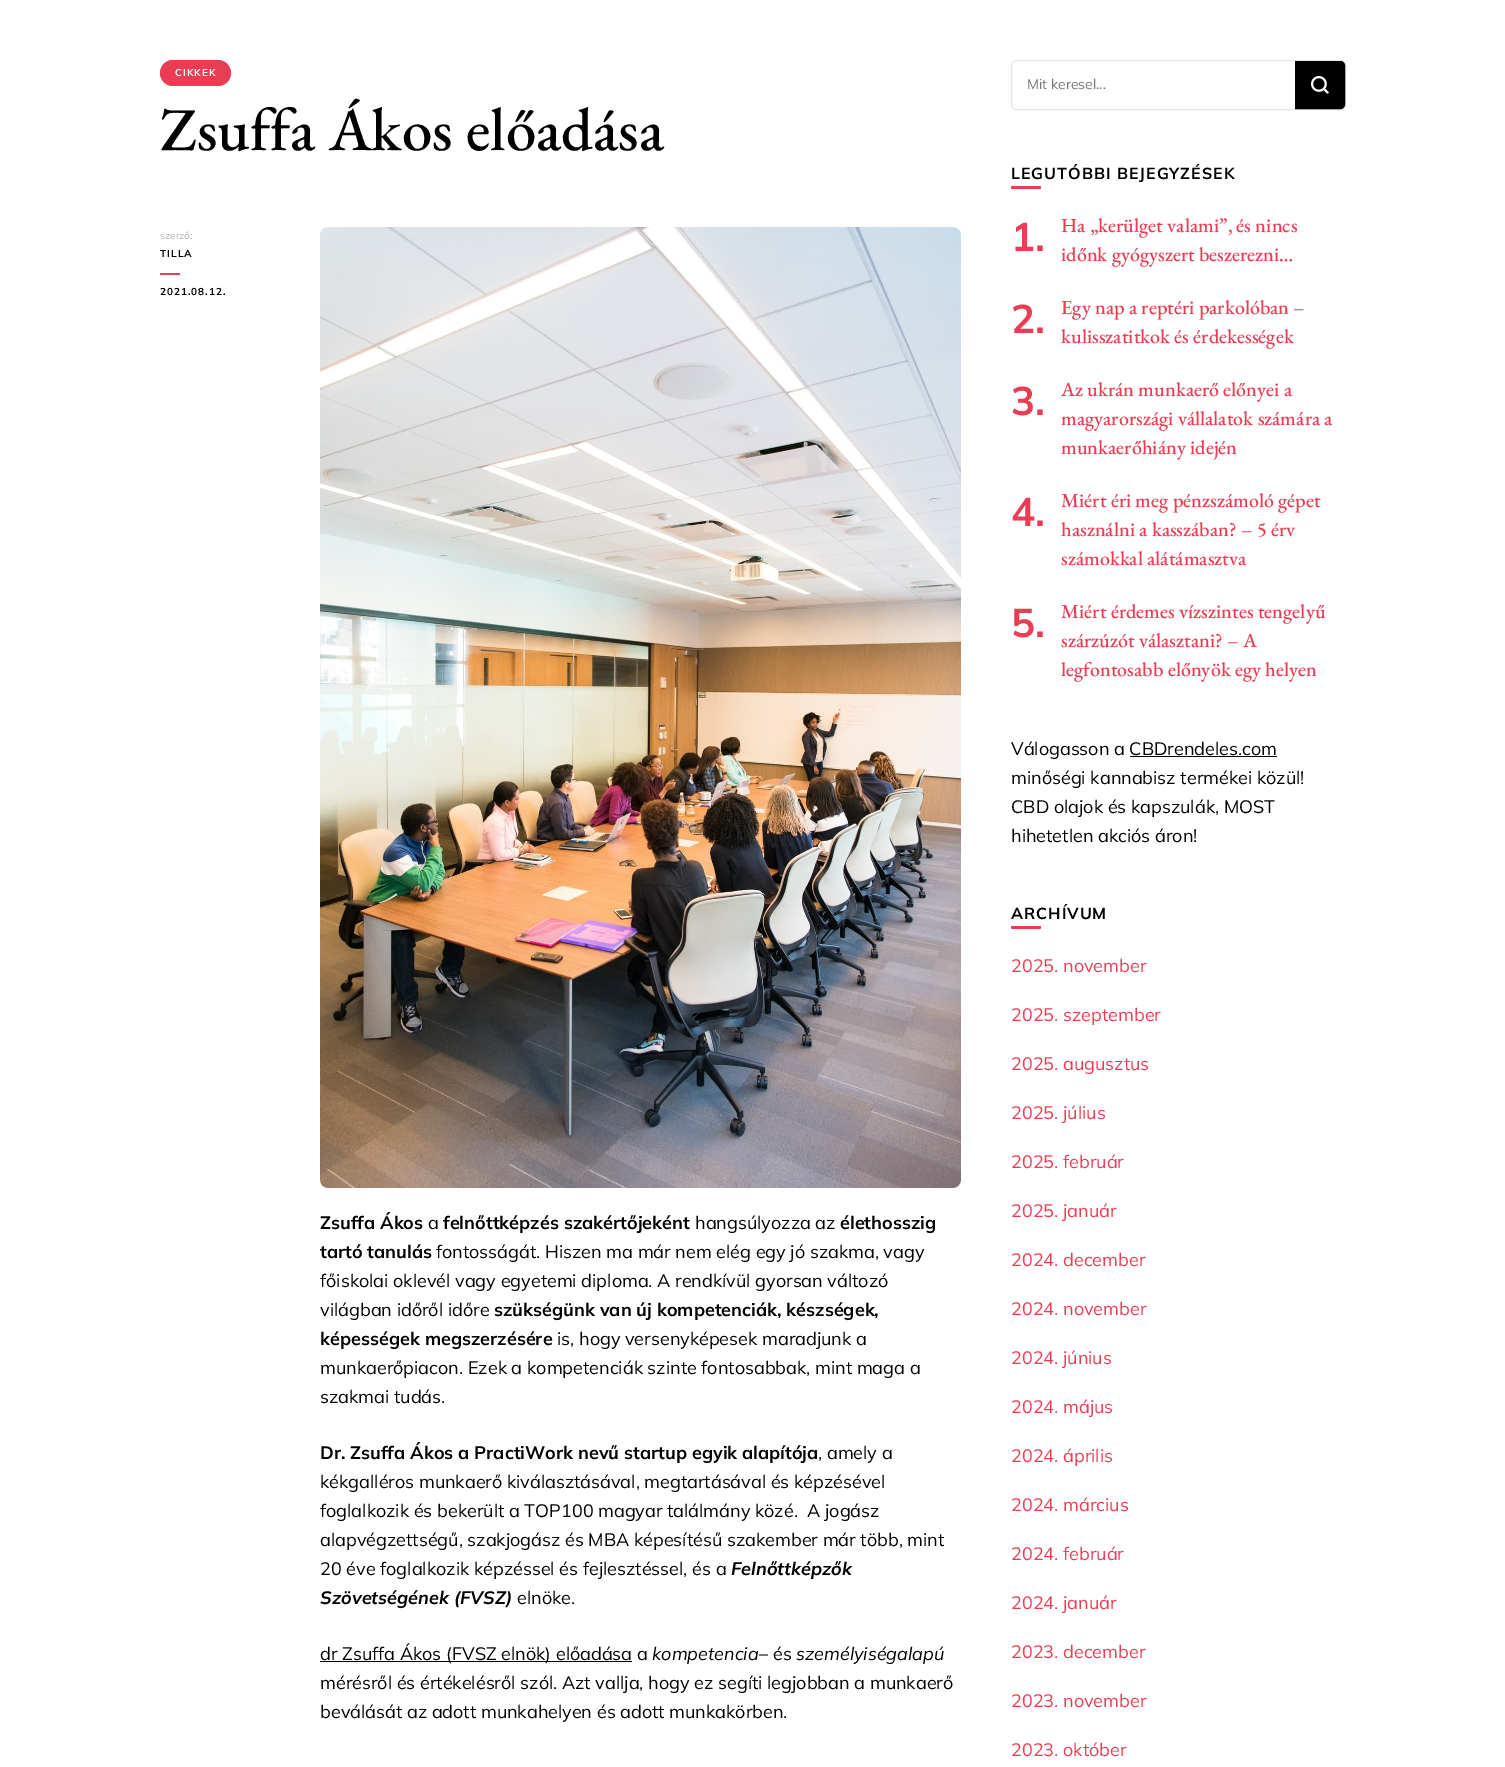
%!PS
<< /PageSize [1505 1767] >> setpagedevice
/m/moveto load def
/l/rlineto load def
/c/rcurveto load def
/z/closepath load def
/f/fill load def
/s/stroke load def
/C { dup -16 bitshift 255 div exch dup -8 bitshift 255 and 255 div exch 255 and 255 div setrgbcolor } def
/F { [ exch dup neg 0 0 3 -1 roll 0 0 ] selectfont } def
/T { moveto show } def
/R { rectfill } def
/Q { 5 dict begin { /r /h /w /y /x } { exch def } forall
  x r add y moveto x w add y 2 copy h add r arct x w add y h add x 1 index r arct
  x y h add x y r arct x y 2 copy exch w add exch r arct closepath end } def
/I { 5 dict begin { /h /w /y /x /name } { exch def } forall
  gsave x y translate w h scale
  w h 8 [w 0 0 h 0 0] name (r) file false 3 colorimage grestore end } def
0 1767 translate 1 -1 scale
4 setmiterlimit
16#FFFFFF C
0 0 1505 1767 R
16#EA3C53 C
160 60 71 26 13 Q f
/Mulish-Bold 10 F
16#FFFFFF C
175 76 m 1 0 (CIKKEK) ashow
/EBGaramond-Medium 61 F
16#000000 C
(Zsuffa Ákos előadása) 160 150 T
/Mulish-Regular 10 F
16#B1B1B2 C
(szerző:) 160 239 T
/Mulish-Bold 10 F
16#000000 C
160 257 m 1 0 (TILLA) ashow
16#EA3C53 C
160 273 20 2 1 Q f
16#000000 C
160 295 m 1 0 (2021.08.12.) ashow
(1.rgb) 320 227 641 961 I
/Mulish-Bold 18 F
(Zsuffa Ákos) 320 1229 T
/Mulish-Regular 18 F
(a) 428 1229 T
/Mulish-Bold 18 F
(felnőttképzés szakértőjeként) 443 1229 T
/Mulish-Regular 18 F
(hangsúlyozza az) 695 1229 T
/Mulish-Bold 18 F
(élethosszig) 840 1229 T
(tartó tanulás) 320 1258 T
/Mulish-Regular 18 F
(fontosságát. Hiszen ma már nem elég egy jó szakma, vagy) 436 1258 T
(főiskolai oklevél vagy egyetemi diploma. A rendkívül gyorsan változó) 320 1287 T
(világban időről időre) 320 1316 T
/Mulish-Bold 18 F
(szükségünk van új kompetenciák, készségek,) 494 1316 T
(képességek megszerzésére) 320 1345 T
/Mulish-Regular 18 F
(is, hogy versenyképesek maradjunk a) 557 1345 T
(munkaerőpiacon. Ezek a kompetenciák szinte fontosabbak, mint maga a) 320 1374 T
(szakmai tudás.) 320 1403 T
/Mulish-Bold 18 F
(Dr. Zsuffa Ákos a PractiWork nevű startup egyik alapítója) 320 1459 T
/Mulish-Regular 18 F
(, amely a) 818 1459 T
(kékgalléros munkaerő kiválasztásával, megtartásával és képzésével) 320 1488 T
(foglalkozik és bekerült a TOP100 magyar találmány közé.  A jogász) 320 1517 T
(alapvégzettségű, szakjogász és MBA képesítésű szakember már több, mint) 320 1546 T
(20 éve foglalkozik képzéssel és fejlesztéssel, és a) 320 1575 T
/Mulish-BoldItalic 18 F
(Felnőttképzők) 731 1575 T
(Szövetségének \(FVSZ\)) 320 1604 T
/Mulish-Regular 18 F
(elnöke.) 517 1604 T
320 1661 312 1 R
(dr Zsuffa Ákos \(FVSZ elnök\) előadása a) 320 1660 T
/Mulish-Italic 18 F
(kompetencia) 652 1660 T
/Mulish-Regular 18 F
(– és) 759 1660 T
/Mulish-Italic 18 F
(személyiségalapú) 796 1660 T
/Mulish-Regular 18 F
(mérésről és értékelésről szól. Azt vallja, hogy ez segíti legjobban a munkaerő) 320 1689 T
(beválását az adott munkahelyen és adott munkakörben.) 320 1718 T
16#E6E6E6 C
1011.5 60.5 334 49 4.5 Q s
/Mulish-Regular 14 F
16#757575 C
(Mit keresel...) 1027 89 T
16#000000 C
1295 61 m 45 0 l 3 0 5 2 5 5 c 0 38 l 0 3 -2 5 -5 5 c -45 0 l z f
(2.rgb) 1311 76 18 18 I
1295.5 61.5 m 44.5 0 l 2.5 0 4.5 2 4.5 4.5 c 0 38 l 0 2.5 -2 4.5 -4.5 4.5 c -44.5 0 l z s
/Mulish-Bold 16 F
1011 179 m 1 0 (LEGUTÓBBI BEJEGYZÉSEK) ashow
16#EA3C53 C
1011 186 30 3 1.5 Q f
/Mulish-Bold 40 F
(1.) 1011 251 T
/EBGaramond-Medium 20 F
(Ha „kerülget valami”, és nincs) 1061 232 T
(időnk gyógyszert beszerezni…) 1061 261 T
/Mulish-Bold 40 F
(2.) 1011 333 T
/EBGaramond-Medium 20 F
(Egy nap a reptéri parkolóban –) 1061 314 T
(kulisszatitkok és érdekességek) 1061 343 T
/Mulish-Bold 40 F
(3.) 1011 415 T
/EBGaramond-Medium 20 F
(Az ukrán munkaerő előnyei a) 1061 396 T
(magyarországi vállalatok számára a) 1061 425 T
(munkaerőhiány idején) 1061 454 T
/Mulish-Bold 40 F
(4.) 1011 526 T
/EBGaramond-Medium 20 F
(Miért éri meg pénzszámoló gépet) 1061 507 T
(használni a kasszában? – 5 érv) 1061 536 T
(számokkal alátámasztva) 1061 565 T
/Mulish-Bold 40 F
(5.) 1011 637 T
/EBGaramond-Medium 20 F
(Miért érdemes vízszintes tengelyű) 1061 618 T
(szárzúzót választani? – A) 1061 647 T
(legfontosabb előnyök egy helyen) 1061 676 T
/Mulish-Regular 18 F
16#000000 C
(Válogasson a CBDrendeles.com) 1011 755 T
1130 756 147 1 R
(minőségi kannabisz termékei közül!) 1011 784 T
(CBD olajok és kapszulák, MOST) 1011 813 T
(hihetetlen akciós áron!) 1011 842 T
/Mulish-Bold 16 F
1011 919 m 1 0 (ARCHÍVUM) ashow
16#EA3C53 C
1011 926 30 3 1.5 Q f
/Mulish-Regular 18 F
(2025. november) 1011 972 T
(2025. szeptember) 1011 1021 T
(2025. augusztus) 1011 1070 T
(2025. július) 1011 1119 T
(2025. február) 1011 1168 T
(2025. január) 1011 1217 T
(2024. december) 1011 1266 T
(2024. november) 1011 1315 T
(2024. június) 1011 1364 T
(2024. május) 1011 1413 T
(2024. április) 1011 1462 T
(2024. március) 1011 1511 T
(2024. február) 1011 1560 T
(2024. január) 1011 1609 T
(2023. december) 1011 1658 T
(2023. november) 1011 1707 T
(2023. október) 1011 1756 T
showpage
